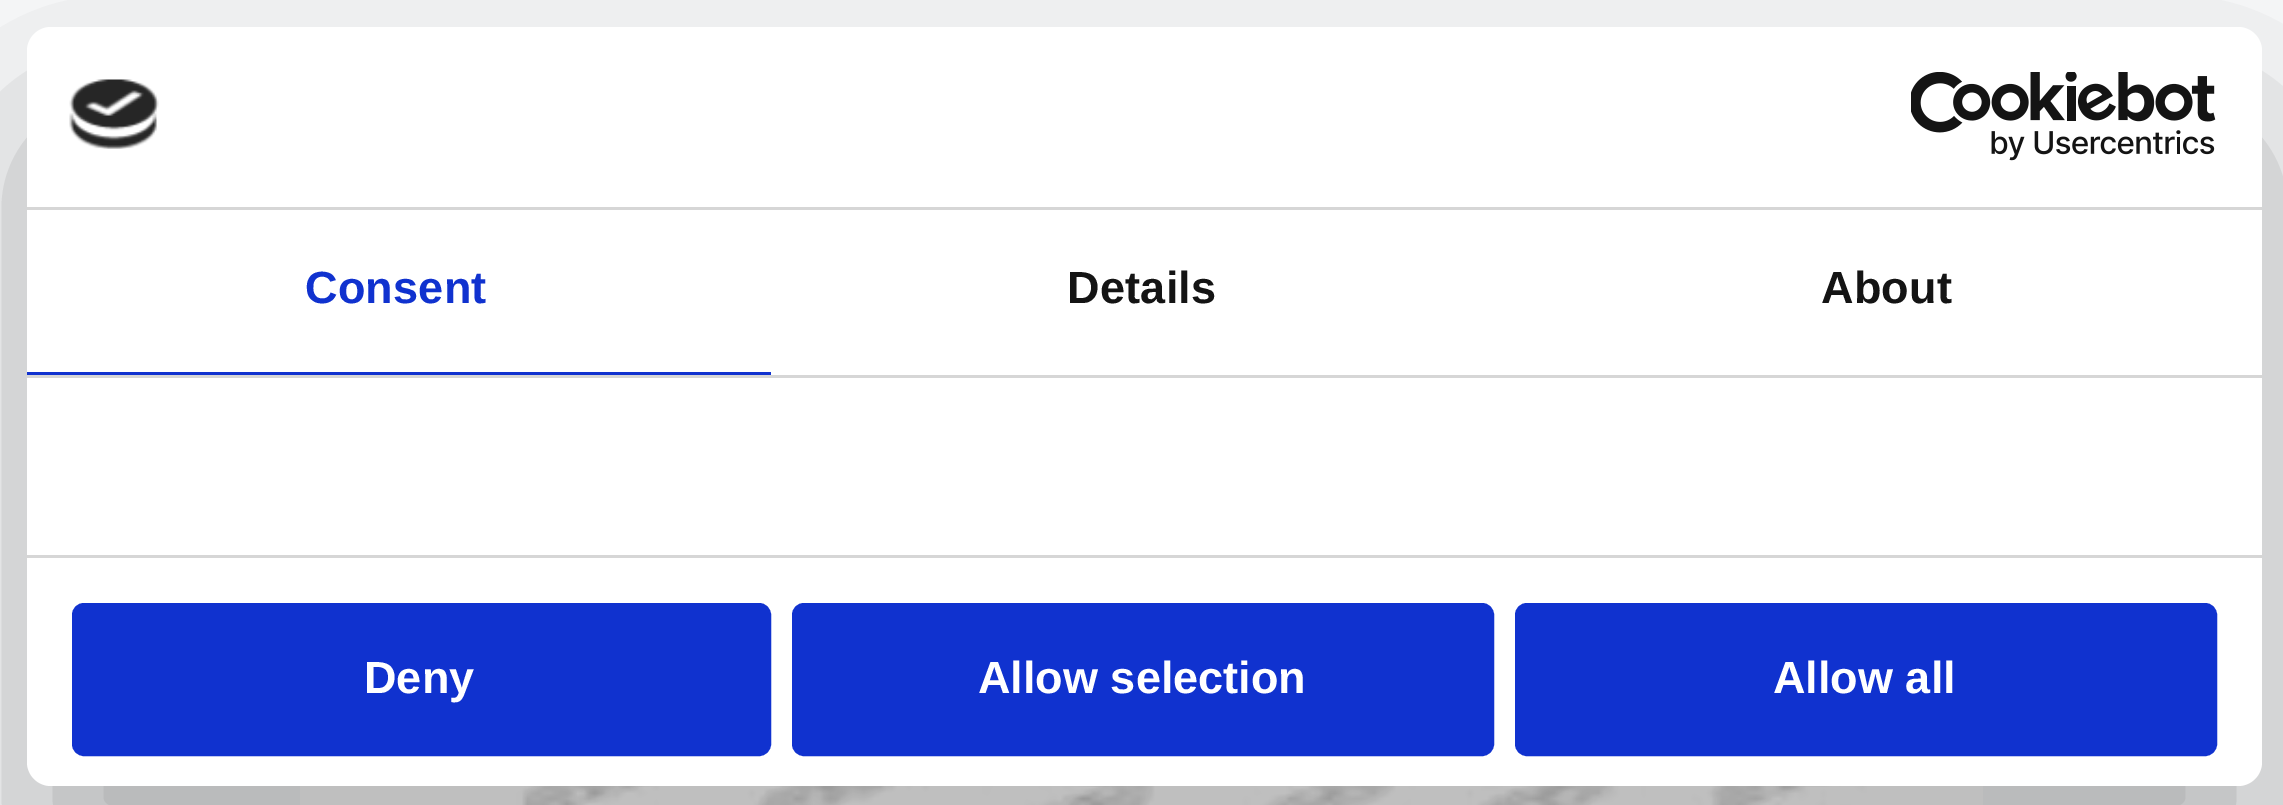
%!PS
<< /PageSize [2283 805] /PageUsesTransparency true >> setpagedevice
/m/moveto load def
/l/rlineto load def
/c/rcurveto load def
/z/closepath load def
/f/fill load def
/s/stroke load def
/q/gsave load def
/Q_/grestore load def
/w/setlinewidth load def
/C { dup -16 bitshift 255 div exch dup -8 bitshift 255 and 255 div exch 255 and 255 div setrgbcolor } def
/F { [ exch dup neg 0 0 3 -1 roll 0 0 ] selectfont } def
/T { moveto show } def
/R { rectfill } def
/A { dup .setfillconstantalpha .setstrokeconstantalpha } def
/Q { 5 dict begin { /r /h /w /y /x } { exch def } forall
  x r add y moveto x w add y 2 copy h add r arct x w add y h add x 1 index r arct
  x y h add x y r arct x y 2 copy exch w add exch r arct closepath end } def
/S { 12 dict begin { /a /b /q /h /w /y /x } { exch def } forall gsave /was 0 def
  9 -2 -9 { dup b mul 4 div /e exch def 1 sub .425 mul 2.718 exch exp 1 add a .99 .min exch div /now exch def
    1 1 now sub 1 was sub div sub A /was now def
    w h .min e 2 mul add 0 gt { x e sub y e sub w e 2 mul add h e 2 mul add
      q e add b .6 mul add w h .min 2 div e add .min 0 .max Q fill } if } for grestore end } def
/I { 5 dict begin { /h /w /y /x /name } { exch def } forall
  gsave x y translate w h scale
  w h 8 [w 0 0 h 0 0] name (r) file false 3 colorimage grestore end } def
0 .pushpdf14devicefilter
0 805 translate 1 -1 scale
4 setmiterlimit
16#F9FAFB C
0 0 2283 805 R
(3.rgb) 300 786 1683 19 I
q
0 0 m 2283 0 l 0 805 l -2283 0 l z 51 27 m 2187 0 l 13.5 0 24 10.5 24 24 c 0 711 l 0 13.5 -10.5 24 -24 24 c -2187 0 l -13.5 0 -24 -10.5 -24 -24 c 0 -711 l 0 -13.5 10.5 -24 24 -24 c z eoclip newpath
16#000000 C
27 123 2235 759 24 102 .3 S
Q_
16#FFFFFF C
27 27 2235 759 24 Q f
16#D6D6D6 C
27 207 2235 3 R
(1.rgb) 69 79 90 70 I
(2.rgb) 1911 72 305 89 I
27 375 2235 3 R
16#1032CF C
27 372 744 3 R
/LiberationSans-Bold 45 F
305 303 m .25 0 (Consent) ashow
16#141414 C
1067 303 m .25 0 (Details) ashow
1821 303 m .25 0 (About) ashow
16#D6D6D6 C
27 555 2235 3 R
16#1032CF C
75 606 693 147 9 Q q f Q_
6 w
s
16#FFFFFF C
(Deny) 364 693 T
16#1032CF C
795 606 696 147 9 Q q f Q_
s
16#FFFFFF C
(Allow selection) 978 693 T
16#1032CF C
1518 606 696 147 9 Q q f Q_
s
16#FFFFFF C
(Allow all) 1773 693 T
.poppdf14devicefilter showpage
